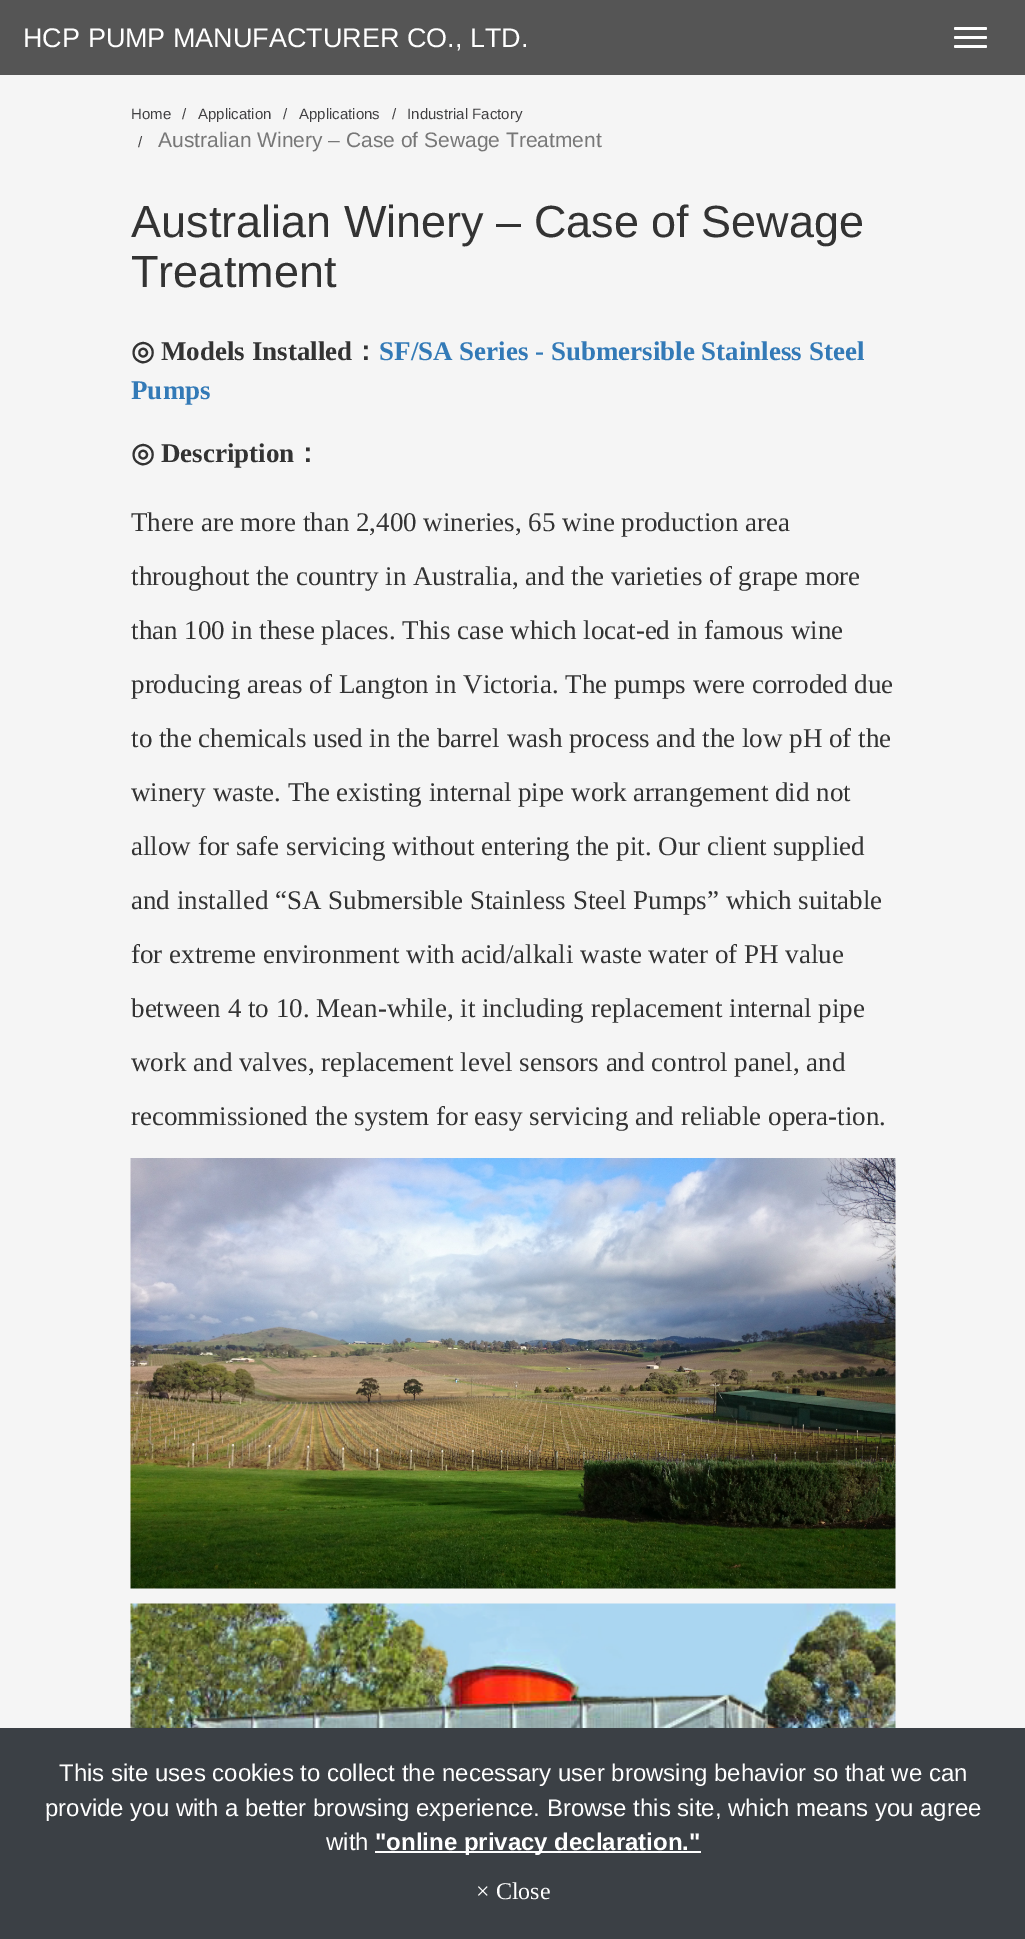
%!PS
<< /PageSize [1025 1939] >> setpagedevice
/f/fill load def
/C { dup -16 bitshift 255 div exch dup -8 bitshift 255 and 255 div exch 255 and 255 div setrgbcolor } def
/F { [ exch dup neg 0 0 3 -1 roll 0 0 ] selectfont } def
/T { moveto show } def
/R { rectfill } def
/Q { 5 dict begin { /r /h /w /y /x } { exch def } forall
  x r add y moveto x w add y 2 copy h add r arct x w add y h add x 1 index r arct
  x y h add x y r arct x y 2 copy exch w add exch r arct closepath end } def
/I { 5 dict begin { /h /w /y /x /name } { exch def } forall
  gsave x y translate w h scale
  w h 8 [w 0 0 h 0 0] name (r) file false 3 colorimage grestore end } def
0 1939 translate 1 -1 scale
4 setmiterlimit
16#F5F5F5 C
0 0 1025 1939 R
16#555555 C
0 0 1025 75 R
/LiberationSans-Regular 27 F
16#FFFFFF C
(HCP PUMP MANUFACTURER CO., LTD.) 23 47 T
954 27 33 3 1.5 Q f
954 36 33 3 1.5 Q f
954 45 33 3 1.5 Q f
/LiberationSans-Regular 15 F
16#414042 C
(Home) 131 119 T
(/) 182 119 T
(Application) 198 119 T
(/) 283 119 T
(Applications) 299 119 T
(/) 392 119 T
(Industrial Factory) 407 119 T
(/) 138 147 T
/LiberationSans-Regular 21 F
16#777777 C
(Australian Winery – Case of Sewage Treatment) 158 147 T
/LiberationSans-Regular 45 F
16#333333 C
(Australian Winery – Case of Sewage) 131 237 T
(Treatment) 131 287 T
/DejaVuSans-Bold 27 F
(◎) 131 360 T
/LiberationSerif-Bold 27 F
(Models Installed) 161 360 T
/WenQuanYiZenHei-Bold 27 F
(：) 352 360 T
/LiberationSerif-Bold 27 F
16#337AB7 C
(SF/SA Series - Submersible Stainless Steel) 379 360 T
(Pumps) 131 399 T
/DejaVuSans-Bold 27 F
16#333333 C
(◎) 131 462 T
/LiberationSerif-Bold 27 F
(Description) 161 462 T
/WenQuanYiZenHei-Bold 27 F
(：) 294 462 T
/LiberationSerif-Regular 27 F
(There are more than 2,400 wineries, 65 wine production area) 131 531 T
(throughout the country in Australia, and the varieties of grape more) 131 585 T
(than 100 in these places. This case which locat-ed in famous wine) 131 639 T
(producing areas of Langton in Victoria. The pumps were corroded due) 131 693 T
(to the chemicals used in the barrel wash process and the low pH of the) 131 747 T
(winery waste. The existing internal pipe work arrangement did not) 131 801 T
(allow for safe servicing without entering the pit. Our client supplied) 131 855 T
(and installed “SA Submersible Stainless Steel Pumps” which suitable) 131 909 T
(for extreme environment with acid/alkali waste water of PH value) 131 963 T
(between 4 to 10. Mean-while, it including replacement internal pipe) 131 1017 T
(work and valves, replacement level sensors and control panel, and) 131 1071 T
(recommissioned the system for easy servicing and reliable opera-tion.) 131 1125 T
(1.rgb) 130 1158 766 431 I
(2.rgb) 130 1603 766 125 I
16#3B4045 C
0 1728 1025 211 R
/LiberationSans-Regular 24 F
16#FFFFFF C
(This site uses cookies to collect the necessary user browsing behavior so that we can) 59 1781 T
(provide you with a better browsing experience. Browse this site, which means you agree) 45 1816 T
(with) 326 1850 T
375 1851 326 2 R
/LiberationSans-Bold 24 F
("online privacy declaration.") 375 1850 T
/LiberationSerif-Regular 24 F
(× Close) 476 1899 T
showpage
